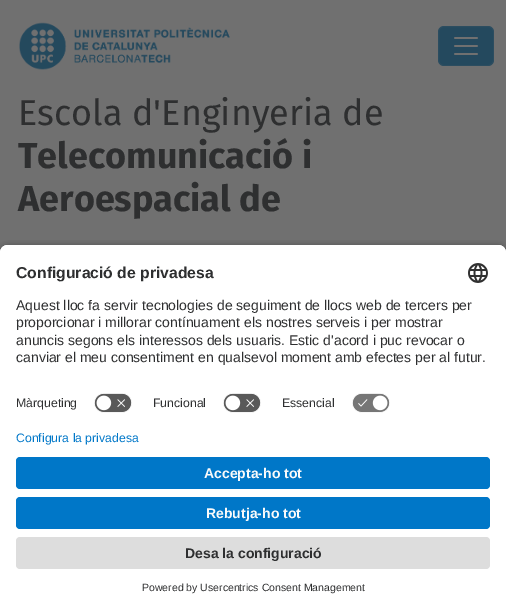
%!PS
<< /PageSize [506 609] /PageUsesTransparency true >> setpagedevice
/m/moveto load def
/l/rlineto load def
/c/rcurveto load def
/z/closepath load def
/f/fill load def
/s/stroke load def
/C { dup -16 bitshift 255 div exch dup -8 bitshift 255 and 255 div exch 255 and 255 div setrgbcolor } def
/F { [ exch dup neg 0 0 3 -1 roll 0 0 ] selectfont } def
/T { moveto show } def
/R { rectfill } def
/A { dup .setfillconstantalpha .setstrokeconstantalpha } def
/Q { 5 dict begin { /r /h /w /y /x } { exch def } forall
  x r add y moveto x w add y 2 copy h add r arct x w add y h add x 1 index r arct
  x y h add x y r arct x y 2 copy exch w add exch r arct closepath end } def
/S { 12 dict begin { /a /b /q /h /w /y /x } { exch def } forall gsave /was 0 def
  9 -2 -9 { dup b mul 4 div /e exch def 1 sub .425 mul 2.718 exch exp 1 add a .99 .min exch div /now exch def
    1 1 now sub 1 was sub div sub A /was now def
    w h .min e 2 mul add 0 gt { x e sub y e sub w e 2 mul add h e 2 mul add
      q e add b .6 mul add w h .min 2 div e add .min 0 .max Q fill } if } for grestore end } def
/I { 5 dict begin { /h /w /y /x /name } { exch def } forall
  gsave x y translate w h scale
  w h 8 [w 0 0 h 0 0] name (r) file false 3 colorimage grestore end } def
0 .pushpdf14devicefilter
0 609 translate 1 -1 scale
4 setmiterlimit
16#707070 C
0 0 506 609 R
(1.rgb) 19 22 211 48 I
16#24495E C
438 26 56 40 6 Q f
0.1 A
16#707070 C
438.5 26.5 55 39 5.5 Q s
1 A
(2.rgb) 454 37 24 18 I
/FiraSans-Regular 36 F
16#2E2F30 C
(Escola d'Enginyeria de) 18 125 T
/FiraSans-Bold 36 F
(Telecomunicació i) 18 168 T
(Aeroespacial de) 18 211 T
16#000000 C
0 248 506 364 8 3.5 .8 S
16#FFFFFF C
8 245 m 490 0 l 4.5 0 8 3.5 8 8 c 0 178 l -506 0 l 0 -178 l 0 -4.5 3.5 -8 8 -8 c z f
8 245 m 490 0 l 4.5 0 8 3.5 8 8 c 0 134 l -506 0 l 0 -134 l 0 -4.5 3.5 -8 8 -8 c z f
/LiberationSans-Bold 15.75 F
16#2E2F30 C
(Configuració de privadesa) 16 278 T
(3.rgb) 468 263 20 20 I
/LiberationSans-Regular 14 F
(Aquest lloc fa servir tecnologies de seguiment de llocs web de tercers per) 16 310 T
(proporcionar i millorar contínuament els nostres serveis i per mostrar) 16 327 T
(anuncis segons els interessos dels usuaris. Estic d'acord i puc revocar o) 16 345 T
(canviar el meu consentiment en qualsevol moment amb efectes per al futur.) 16 362 T
/LiberationSans-Regular 12.25 F
(Màrqueting) 16 407 T
(4.rgb) 94 393 38 20 I
(Funcional) 153 407 T
(4.rgb) 223 393 38 20 I
(Essencial) 282 407 T
(5.rgb) 352 393 38 20 I
16#FFFFFF C
0 431 506 178 R
16#0077C8 C
(Configura la privadesa) 16 442 T
16 457 474 32 4 Q f
/LiberationSans-Bold 14 F
16#FAFAFA C
(Accepta-ho tot) 204 478 T
16#0077C8 C
16 497 474 32 4 Q f
16#FAFAFA C
(Rebutja-ho tot) 206 518 T
16#DDDDDD C
16 537 474 32 4 Q f
16#2E2F30 C
(Desa la configuració) 185 558 T
/LiberationSans-Regular 10.5 F
(Powered by Usercentrics Consent Management) 142 591 T
.poppdf14devicefilter showpage
